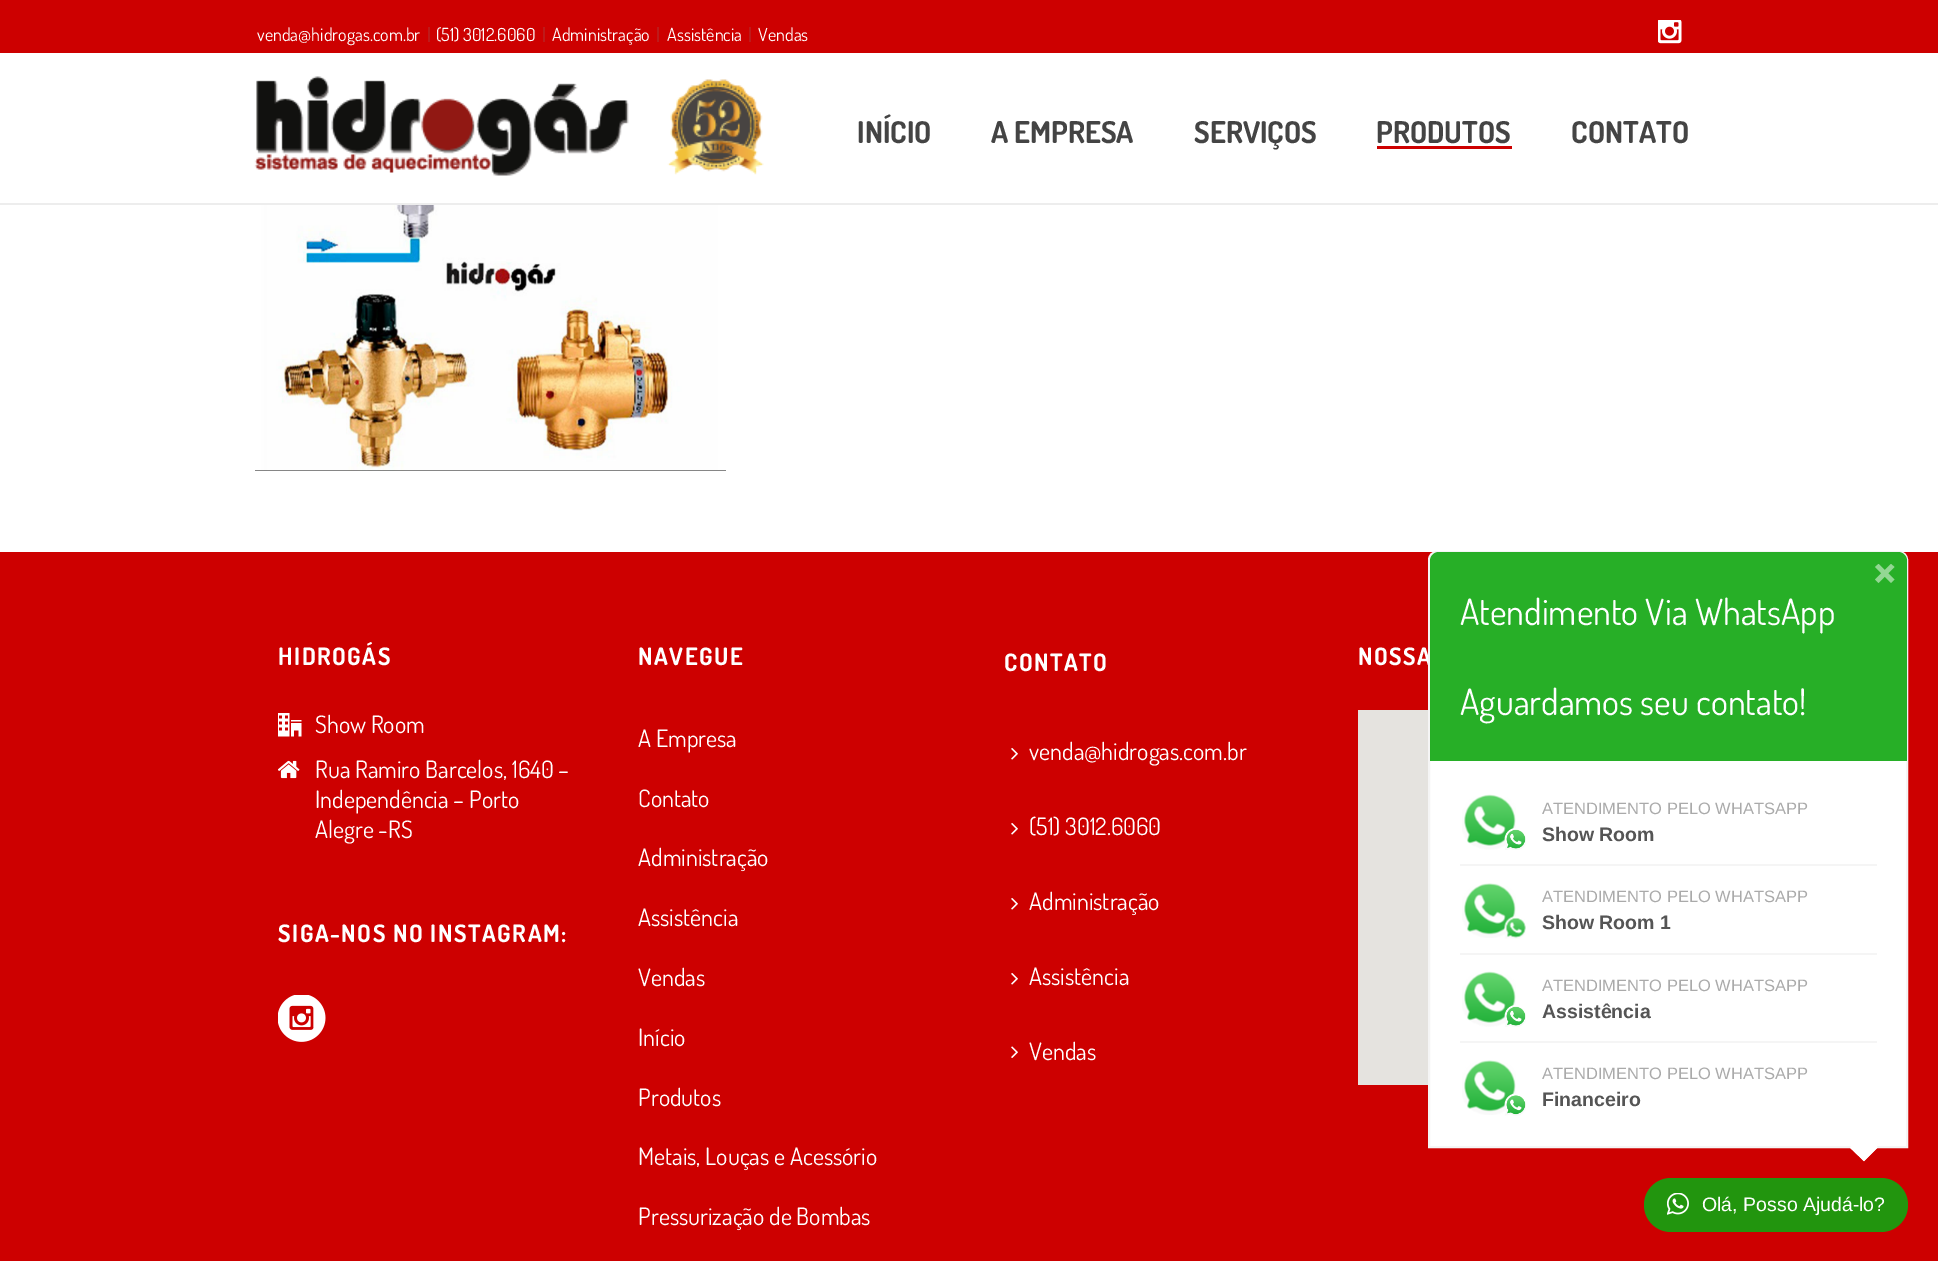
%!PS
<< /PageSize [1938 1261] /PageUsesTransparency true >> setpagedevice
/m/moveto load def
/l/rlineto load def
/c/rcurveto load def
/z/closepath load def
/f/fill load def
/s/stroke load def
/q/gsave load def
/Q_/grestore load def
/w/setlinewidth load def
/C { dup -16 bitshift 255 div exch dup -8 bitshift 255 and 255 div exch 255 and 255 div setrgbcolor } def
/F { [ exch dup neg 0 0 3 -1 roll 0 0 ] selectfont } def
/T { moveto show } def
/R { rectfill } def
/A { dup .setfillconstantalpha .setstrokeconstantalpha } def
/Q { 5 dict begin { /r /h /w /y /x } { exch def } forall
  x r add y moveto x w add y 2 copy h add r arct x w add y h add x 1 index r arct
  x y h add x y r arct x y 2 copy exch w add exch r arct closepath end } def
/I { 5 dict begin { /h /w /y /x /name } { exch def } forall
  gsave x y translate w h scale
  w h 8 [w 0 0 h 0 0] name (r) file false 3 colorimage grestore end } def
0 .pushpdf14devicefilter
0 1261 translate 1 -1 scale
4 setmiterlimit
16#FFFFFF C
0 0 1938 1261 R
16#CD0000 C
0 0 1938 53 R
16#BE1A1A C
428 27 2 15 R
/Dosis-Regular 18 F
16#FFFFFF C
(venda@hidrogas.com.br) 257 41 T
16#BE1A1A C
543 27 2 15 R
16#FFFFFF C
(\(51\) 3012.6060) 436 41 T
16#BE1A1A C
657 27 2 15 R
16#FFFFFF C
(Administração) 552 41 T
16#BE1A1A C
749 27 2 15 R
16#FFFFFF C
(Assistência) 667 41 T
(Vendas) 758 41 T
(1.rgb) 1658 20 24 24 I
16#EDEDED C
0 203 1938 2 R
(2.rgb) 254 76 510 100 I
/Dosis-Bold 30 F
16#444444 C
(INÍCIO) 857 143 T
(A EMPRESA) 991 143 T
(SERVIÇOS) 1194 143 T
(PRODUTOS) 1376 143 T
16#CD0000 C
1377 146 135 3 R
16#444444 C
(CONTATO) 1571 143 T
16#000000 C
255 470 471 1 R
(3.rgb) 255 205 471 266 I
16#CD0000 C
0 552 1938 709 R
/Dosis-Bold 24 F
16#FFFFFF C
278 665 m 1.5 0 (HIDROGÁS) ashow
(4.rgb) 278 713 24 24 I
/Dosis-Regular 24 F
(Show Room) 315 733 T
(5.rgb) 278 760 22 19 I
(Rua Ramiro Barcelos, 1640 –) 315 778 T
(Independência – Porto) 315 808 T
(Alegre -RS) 315 838 T
/Dosis-Bold 24 F
278 942 m 1.5 0 (SIGA-NOS NO INSTAGRAM:) ashow
(6.rgb) 278 995 48 47 I
638 665 m 1.5 0 (NAVEGUE) ashow
/Dosis-Regular 24 F
(A Empresa) 638 747 T
(Contato) 638 807 T
(Administração) 638 866 T
(Assistência) 638 926 T
(Vendas) 638 986 T
(Início) 638 1046 T
(Produtos) 638 1106 T
(Metais, Louças e Acessório) 638 1165 T
(Pressurização de Bombas) 638 1225 T
/Dosis-Bold 24 F
1004 671 m 1.5 0 (CONTATO) ashow
(7.rgb) 1011 748 7 12 I
/Dosis-Regular 24 F
(venda@hidrogas.com.br) 1029 760 T
(7.rgb) 1011 823 7 12 I
(\(51\) 3012.6060) 1029 835 T
(7.rgb) 1011 898 7 12 I
(Administração) 1029 910 T
(7.rgb) 1011 973 7 12 I
(Assistência) 1029 985 T
(8.rgb) 1011 1046 7 12 I
(Vendas) 1029 1060 T
/Dosis-Bold 24 F
1358 665 m 1.5 0 (NOSSA) ashow
16#E5E3DF C
1358 710 70 375 R
16#FFFFFF C
1437 552 m 462 0 l 4.5 0 8 3.5 8 8 c 0 587 l -478 0 l 0 -587 l 0 -4.5 3.5 -8 8 -8 c z q f Q_
16#F5F5F5 C
2 w
s
0.9 A
16#0FA60F C
1439 552 m 459 0 l 5 0 9 4 9 9 c 0 200 l -477 0 l 0 -200 l 0 -5 4 -9 9 -9 c z f
1 A
16#93D793 C
1878.5 564 m 16 15.5 l -3.5 3.5 l -16 -16 l z f
1875 579.5 m 16 -15.5 l 3.5 3 l -16 16 l z f
/Dosis-Regular 36 F
16#FFFFFF C
(Atendimento Via WhatsApp) 1460 625 T
(Aguardamos seu contato!) 1460 715 T
(9.rgb) 1462 794 54 56 I
(10.rgb) 1504 828 22 22 I
/LiberationSans-Regular 16.5 F
16#AAAAAA C
(ATENDIMENTO PELO WHATSAPP) 1542 814 T
/LiberationSans-Bold 19.5 F
16#555555 C
(Show Room) 1542 841 T
16#F5F5F5 C
1460 864 417 2 R
(11.rgb) 1462 883 54 55 I
(12.rgb) 1504 916 22 23 I
/LiberationSans-Regular 16.5 F
16#AAAAAA C
(ATENDIMENTO PELO WHATSAPP) 1542 902 T
/LiberationSans-Bold 19.5 F
16#555555 C
(Show Room 1) 1542 929 T
16#F5F5F5 C
1460 953 417 2 R
(9.rgb) 1462 971 54 56 I
(10.rgb) 1504 1005 22 22 I
/LiberationSans-Regular 16.5 F
16#AAAAAA C
(ATENDIMENTO PELO WHATSAPP) 1542 991 T
/LiberationSans-Bold 19.5 F
16#555555 C
(Assistência) 1542 1018 T
16#F5F5F5 C
1460 1041 417 2 R
(11.rgb) 1462 1060 54 55 I
(13.rgb) 1504 1093 22 23 I
/LiberationSans-Regular 16.5 F
16#AAAAAA C
(ATENDIMENTO PELO WHATSAPP) 1542 1079 T
/LiberationSans-Bold 19.5 F
16#555555 C
(Financeiro) 1542 1106 T
16#FFFFFF C
1864 1133.5 m 13.5 14 l -13.5 13.5 l -14 -13.5 l z f
1.5 w
1864 1134.5 m 12.5 13 l -12.5 12.5 l -13 -12.5 l z s
16#22950E C
1644 1178 264 54 27 Q f
(14.rgb) 1667 1193 22 22 I
/LiberationSans-Regular 19.5 F
16#FFFFFF C
(Olá, Posso Ajudá-lo?) 1702 1211 T
.poppdf14devicefilter showpage
